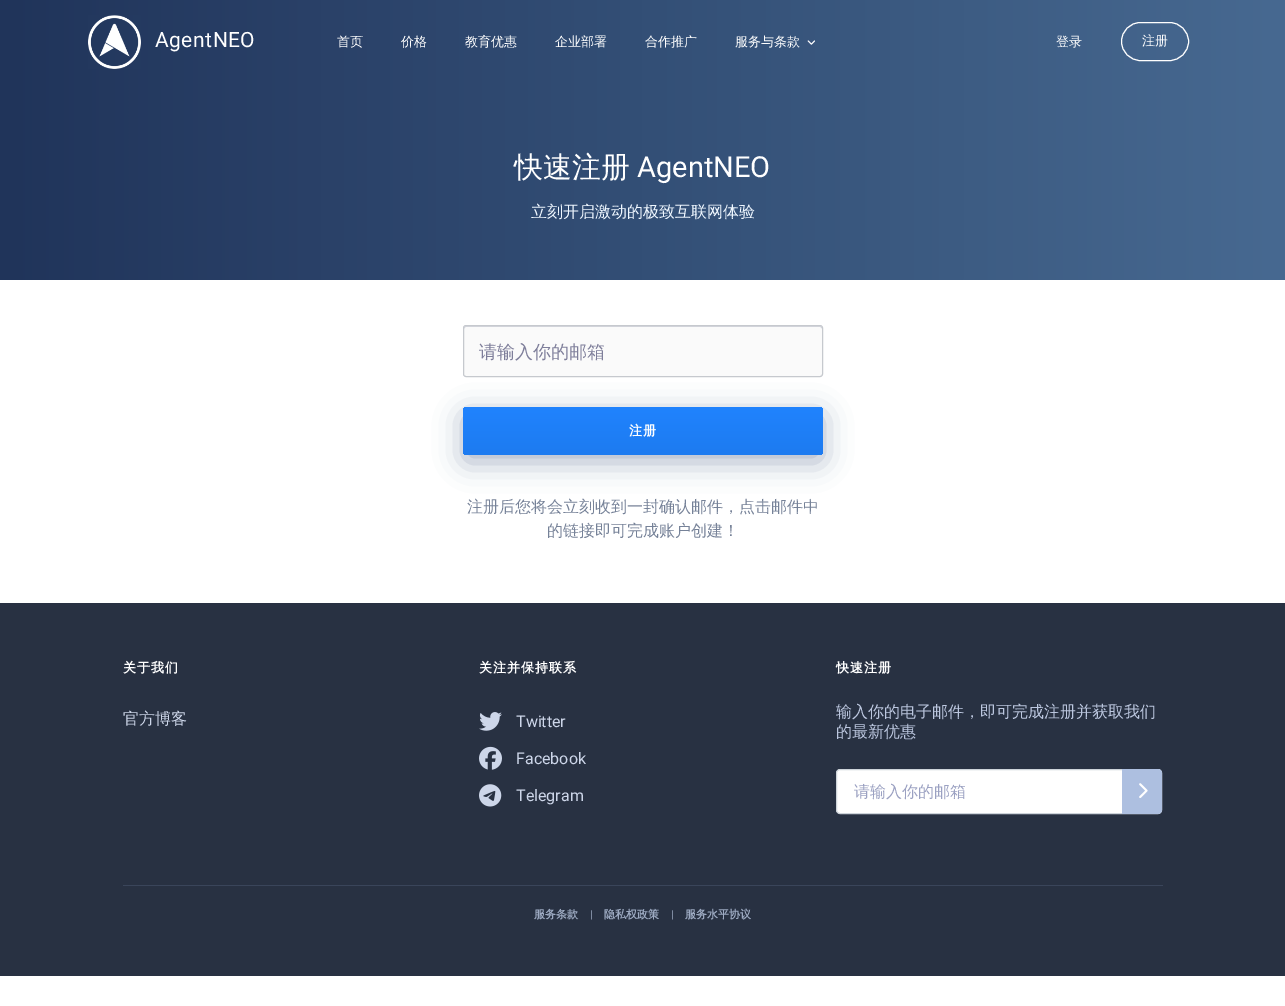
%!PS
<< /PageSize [1285 1006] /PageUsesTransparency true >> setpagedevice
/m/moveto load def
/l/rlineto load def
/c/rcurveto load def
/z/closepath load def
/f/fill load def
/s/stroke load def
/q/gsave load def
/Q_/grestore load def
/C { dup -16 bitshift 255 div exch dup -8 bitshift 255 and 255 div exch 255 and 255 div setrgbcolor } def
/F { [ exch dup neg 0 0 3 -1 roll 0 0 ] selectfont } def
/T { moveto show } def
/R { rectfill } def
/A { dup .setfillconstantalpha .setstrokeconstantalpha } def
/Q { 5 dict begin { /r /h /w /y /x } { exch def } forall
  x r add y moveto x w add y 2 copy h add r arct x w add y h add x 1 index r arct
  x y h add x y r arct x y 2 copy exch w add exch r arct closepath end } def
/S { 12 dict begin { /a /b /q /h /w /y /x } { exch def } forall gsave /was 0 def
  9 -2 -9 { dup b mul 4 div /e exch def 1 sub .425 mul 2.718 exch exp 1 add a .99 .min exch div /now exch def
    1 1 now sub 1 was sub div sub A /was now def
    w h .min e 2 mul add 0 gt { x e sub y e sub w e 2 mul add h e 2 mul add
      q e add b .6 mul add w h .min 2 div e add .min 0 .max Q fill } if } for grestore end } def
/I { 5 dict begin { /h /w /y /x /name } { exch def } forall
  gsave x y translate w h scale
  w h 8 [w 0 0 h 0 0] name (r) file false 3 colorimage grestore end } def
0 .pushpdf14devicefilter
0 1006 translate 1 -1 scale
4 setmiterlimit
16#FFFFFF C
0 0 1285 1006 R
q 0 0 m 1285 0 l 0 280 l -1285 0 l z clip newpath
<< /ShadingType 2 /ColorSpace /DeviceRGB /Coords [0 140 1285 140] /Extend [true true] /Function << /FunctionType 2 /Domain [0 1] /C0 [.125 .204 .353] /C1 [.278 .412 .569] /N 1 >> >> shfill Q_
(1.rgb) 88 15 53 54 I
/Roboto-Regular 21 F
155 47 m .5 0 (AgentNEO) ashow
/WenQuanYiZenHei-Medium 13 F
(首页) 337 46 T
(价格) 401 46 T
(教育优惠) 465 46 T
(企业部署) 555 46 T
(合作推广) 645 46 T
(服务与条款) 735 46 T
(2.rgb) 807 40 8 5 I
(登录) 1056 46 T
1121.5 22.5 67 38 19 Q s
(注册) 1142 45 T
/WenQuanYiZenHei-Medium 29 F
(快速注册) 514 177 T
/Roboto-Regular 29 F
(AgentNEO) 637 177 T
/WenQuanYiZenHei-Medium 16 F
16#EFF7FF C
(立刻开启激动的极致互联网体验) 531 217 T
16#FAFAFA C
463 325 360 52 3 Q f
16#D5D7DE C
466 327 m 354 0 l 1 0 2 1 2 2 c 0 -1 0 -3 -2 -3 c -354 0 l -2 0 -2 2 -2 3 c 0 -1 1 -2 2 -2 c z f
16#C6C9CE C
463.5 325.5 359 51 2.5 Q s
/WenQuanYiZenHei-Medium 18 F
16#7E7E9A C
(请输入你的邮箱) 479 358 T
16#172B63 C
463 414 360 48 4 14 .35 S
q 463 407 360 48 4 Q clip newpath
<< /ShadingType 2 /ColorSpace /DeviceRGB /Coords [643 407 643 455] /Extend [true true] /Function << /FunctionType 2 /Domain [0 1] /C0 [.125 .514 .996] /C1 [.114 .482 .941] /N 1 >> >> shfill Q_
/WenQuanYiZenHei-Bold 13 F
16#FFFFFF C
629 435 m 1 0 (注册) ashow
/WenQuanYiZenHei-Medium 16 F
16#768298 C
(注册后您将会立刻收到一封确认邮件，点击邮件中) 467 512 T
(的链接即可完成账户创建！) 547 536 T
16#283142 C
0 603 1285 373 R
/WenQuanYiZenHei-Bold 13 F
16#FFFFFF C
123 672 m 1 0 (关于我们) ashow
/WenQuanYiZenHei-Medium 16 F
16#CDD6E9 C
(官方博客) 123 724 T
/WenQuanYiZenHei-Bold 13 F
16#FFFFFF C
479 672 m 1 0 (关注并保持联系) ashow
(3.rgb) 479 712 23 19 I
/Roboto-Regular 16 F
16#CDD6E9 C
(Twitter) 516 727 T
(4.rgb) 479 746 23 24 I
(Facebook) 516 764 T
(5.rgb) 479 784 23 23 I
(Telegram) 516 801 T
/WenQuanYiZenHei-Bold 13 F
16#FFFFFF C
836 672 m 1 0 (快速注册) ashow
/WenQuanYiZenHei-Medium 16 F
16#BCC7DF C
(输入你的电子邮件，即可完成注册并获取我们) 836 717 T
(的最新优惠) 836 737 T
16#FFFFFF C
836.5 769.5 325 44 3.5 Q q f Q_
16#CED4DA C
s
16#9BA1C2 C
(请输入你的邮箱) 854 797 T
16#ADBFE0 C
1122 769 m 36 0 l 2 0 4 2 4 4 c 0 37 l 0 2 -2 4 -4 4 c -36 0 l z f
(6.rgb) 1139 783 9 15 I
16#3A455A C
123 885 1040 1 R
/WenQuanYiZenHei-Bold 11 F
16#9DAAC2 C
(服务条款) 534 918 T
/Roboto-Bold 11 F
(|) 590 918 T
/WenQuanYiZenHei-Bold 11 F
(隐私权政策) 604 918 T
/Roboto-Bold 11 F
(|) 671 918 T
/WenQuanYiZenHei-Bold 11 F
(服务水平协议) 685 918 T
.poppdf14devicefilter showpage
